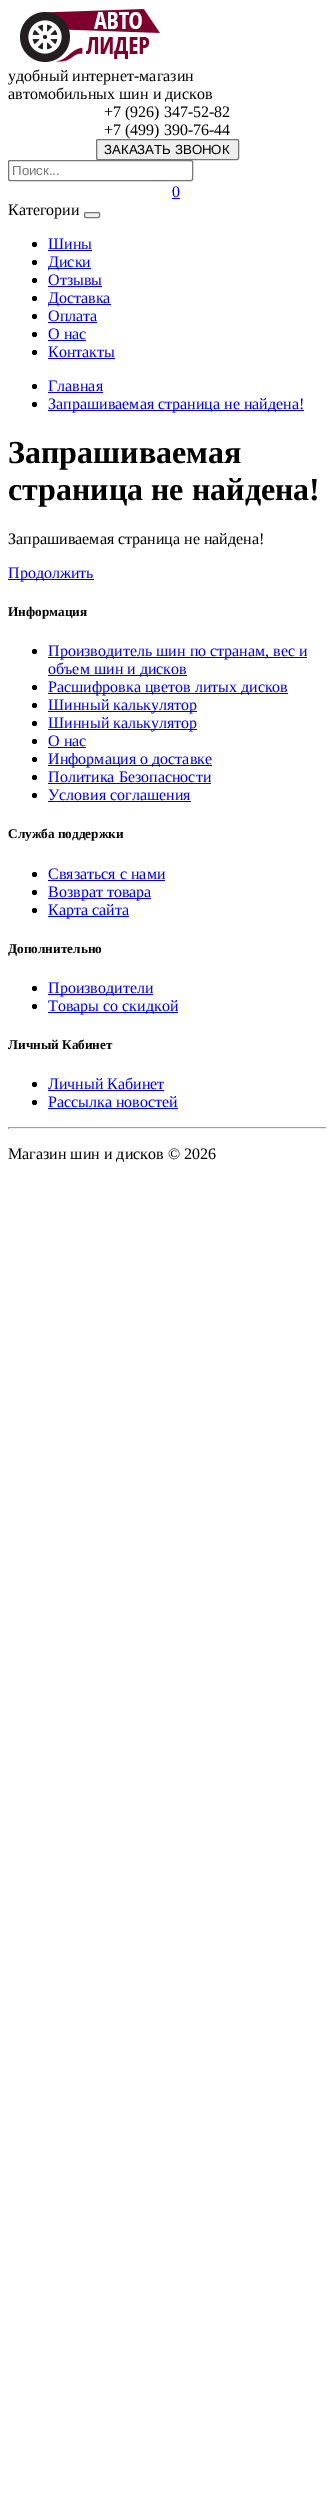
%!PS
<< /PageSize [335 2520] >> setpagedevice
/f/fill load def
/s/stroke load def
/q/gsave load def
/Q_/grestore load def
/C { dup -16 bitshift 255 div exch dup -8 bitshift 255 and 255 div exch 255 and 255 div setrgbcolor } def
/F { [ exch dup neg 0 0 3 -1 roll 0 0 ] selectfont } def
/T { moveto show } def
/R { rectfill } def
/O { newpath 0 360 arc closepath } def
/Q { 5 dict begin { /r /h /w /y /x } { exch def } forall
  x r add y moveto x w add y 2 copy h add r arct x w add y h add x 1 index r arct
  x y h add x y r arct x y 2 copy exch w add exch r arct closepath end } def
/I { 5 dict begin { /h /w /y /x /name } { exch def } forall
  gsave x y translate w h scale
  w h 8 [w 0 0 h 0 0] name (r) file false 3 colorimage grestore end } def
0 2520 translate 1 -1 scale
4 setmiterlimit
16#FFFFFF C
0 0 335 2520 R
(1.rgb) 20 9 140 53 I
/LiberationSerif-Regular 16 F
16#000000 C
(удобный интернет-магазин) 8 81 T
(автомобильных шин и дисков) 8 99 T
(+7 \(926\) 347-52-82) 104 117 T
(+7 \(499\) 390-76-44) 104 135 T
16#EFEFEF C
96.5 139.5 142 20 1.5 Q q f Q_
16#767676 C
s
/LiberationSans-Regular 13.25 F
16#000000 C
(ЗАКАЗАТЬ ЗВОНОК) 104 154 T
16#767676 C
8.5 160.5 184 20 1.5 Q s
16#757575 C
(Поиск...) 12 175 T
/LiberationSerif-Regular 16 F
16#0000EE C
(0) 172 197 T
172 198 8 1 R
16#000000 C
(Категории) 8 215 T
16#EFEFEF C
84.5 212.5 15 5 1.5 Q q f Q_
16#767676 C
s
16#000000 C
34.5 244.5 2.5 O f
16#0000EE C
(Шины) 48 249 T
48 250 44 1 R
16#000000 C
34.5 262.5 2.5 O f
16#0000EE C
48 268 43 1 R
(Диски) 48 267 T
16#000000 C
34.5 280.5 2.5 O f
16#0000EE C
(Отзывы) 48 285 T
48 286 54 1 R
16#000000 C
34.5 298.5 2.5 O f
16#0000EE C
48 304 63 1 R
(Доставка) 48 303 T
16#000000 C
34.5 316.5 2.5 O f
16#0000EE C
(Оплата) 48 321 T
48 322 49 1 R
16#000000 C
34.5 334.5 2.5 O f
16#0000EE C
(О нас) 48 339 T
48 340 38 1 R
16#000000 C
34.5 352.5 2.5 O f
16#0000EE C
(Контакты) 48 357 T
48 358 67 1 R
16#000000 C
34.5 386.5 2.5 O f
16#0000EE C
(Главная) 48 391 T
48 392 55 1 R
16#000000 C
34.5 404.5 2.5 O f
16#0000EE C
48 410 256 1 R
(Запрашиваемая страница не найдена!) 48 409 T
/LiberationSerif-Bold 32 F
16#000000 C
(Запрашиваемая) 8 463 T
(страница не найдена!) 8 500 T
/LiberationSerif-Regular 16 F
(Запрашиваемая страница не найдена!) 8 544 T
16#0000EE C
8 579 86 1 R
(Продолжить) 8 578 T
/LiberationSerif-Bold 13.25 F
16#000000 C
(Информация) 8 616 T
34.5 651.5 2.5 O f
16#0000EE C
48 657 259 1 R
/LiberationSerif-Regular 16 F
(Производитель шин по странам, вес и) 48 656 T
48 675 139 1 R
(объем шин и дисков) 48 674 T
16#000000 C
34.5 687.5 2.5 O f
16#0000EE C
48 693 240 1 R
(Расшифровка цветов литых дисков) 48 692 T
16#000000 C
34.5 705.5 2.5 O f
16#0000EE C
48 711 149 1 R
(Шинный калькулятор) 48 710 T
16#000000 C
34.5 723.5 2.5 O f
16#0000EE C
48 729 149 1 R
(Шинный калькулятор) 48 728 T
16#000000 C
34.5 741.5 2.5 O f
16#0000EE C
(О нас) 48 746 T
48 747 38 1 R
16#000000 C
34.5 759.5 2.5 O f
16#0000EE C
48 765 164 1 R
(Информация о доставке) 48 764 T
16#000000 C
34.5 777.5 2.5 O f
16#0000EE C
(Политика Безопасности) 48 782 T
48 783 163 1 R
16#000000 C
34.5 795.5 2.5 O f
16#0000EE C
(Условия соглашения) 48 800 T
48 801 143 1 R
/LiberationSerif-Bold 13.25 F
16#000000 C
(Служба поддержки) 8 838 T
34.5 874.5 2.5 O f
/LiberationSerif-Regular 16 F
16#0000EE C
(Связаться с нами) 48 879 T
48 880 117 1 R
16#000000 C
34.5 892.5 2.5 O f
16#0000EE C
48 898 103 1 R
(Возврат товара) 48 897 T
16#000000 C
34.5 910.5 2.5 O f
16#0000EE C
48 916 81 1 R
(Карта сайта) 48 915 T
/LiberationSerif-Bold 13.25 F
16#000000 C
(Дополнительно) 8 953 T
34.5 988.5 2.5 O f
16#0000EE C
48 994 105 1 R
/LiberationSerif-Regular 16 F
(Производители) 48 993 T
16#000000 C
34.5 1006.5 2.5 O f
16#0000EE C
48 1012 130 1 R
(Товары со скидкой) 48 1011 T
/LiberationSerif-Bold 13.25 F
16#000000 C
(Личный Кабинет) 8 1049 T
34.5 1084.5 2.5 O f
/LiberationSerif-Regular 16 F
16#0000EE C
(Личный Кабинет) 48 1089 T
48 1090 116 1 R
16#000000 C
34.5 1102.5 2.5 O f
16#0000EE C
(Рассылка новостей) 48 1107 T
48 1108 130 1 R
16#9F9F9F C
8 1127 319 1 R
16#EEEEEE C
326 1127 1 2 R
8 1128 319 1 R
16#9F9F9F C
8 1127 1 2 R
16#000000 C
(Магазин шин и дисков © 2026) 8 1159 T
showpage
